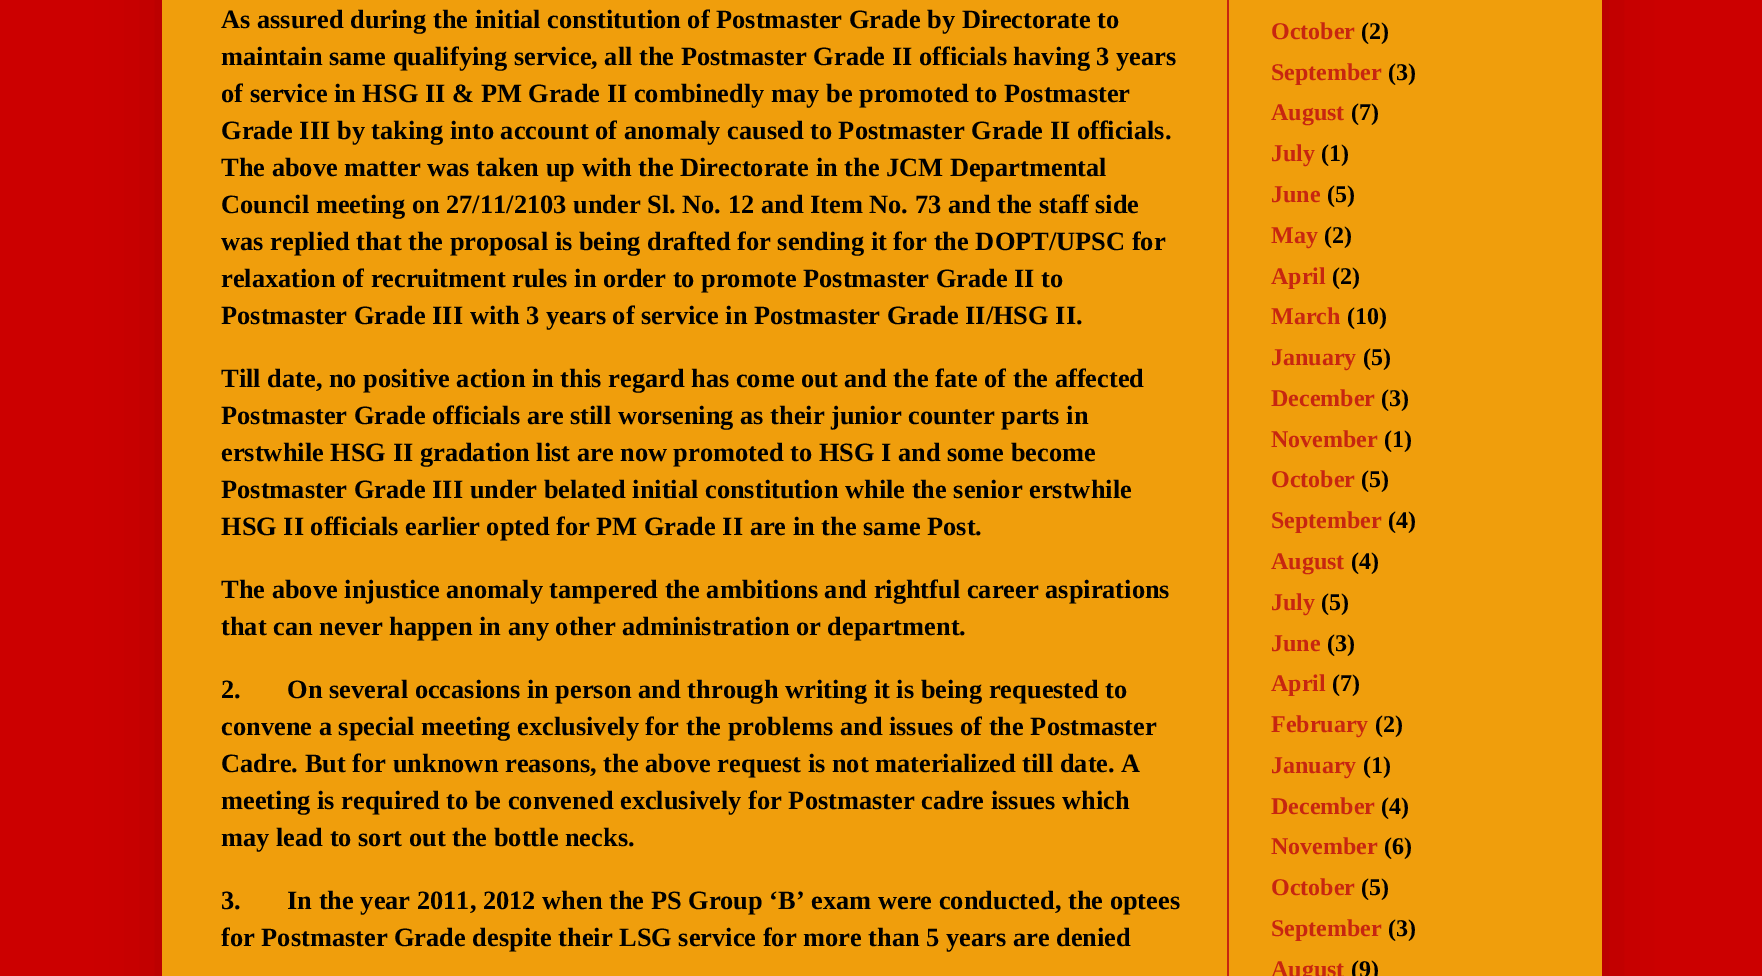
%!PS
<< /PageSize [1762 976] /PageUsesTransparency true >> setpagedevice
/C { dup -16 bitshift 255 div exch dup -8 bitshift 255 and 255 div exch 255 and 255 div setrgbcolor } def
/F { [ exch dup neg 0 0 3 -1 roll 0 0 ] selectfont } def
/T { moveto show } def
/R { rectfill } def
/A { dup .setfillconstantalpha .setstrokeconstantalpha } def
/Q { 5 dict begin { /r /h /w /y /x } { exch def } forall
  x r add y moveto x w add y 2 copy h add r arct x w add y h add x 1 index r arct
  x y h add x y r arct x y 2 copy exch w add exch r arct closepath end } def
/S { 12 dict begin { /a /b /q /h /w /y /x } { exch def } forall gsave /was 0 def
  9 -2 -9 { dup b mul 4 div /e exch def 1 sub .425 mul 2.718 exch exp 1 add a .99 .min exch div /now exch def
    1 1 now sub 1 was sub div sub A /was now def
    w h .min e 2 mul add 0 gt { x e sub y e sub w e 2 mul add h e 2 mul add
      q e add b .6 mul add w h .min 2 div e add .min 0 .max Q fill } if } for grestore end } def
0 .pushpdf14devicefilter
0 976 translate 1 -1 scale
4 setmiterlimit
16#CC0000 C
0 0 1762 976 R
16#000000 C
162 -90 1440 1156 0 30 .15 S
16#F09E0C C
162 0 1440 976 R
16#C72610 C
1227 0 2 976 R
/LiberationSerif-Bold 26.4 F
16#000000 C
(As assured during the initial constitution of Postmaster Grade by Directorate to) 221 28 T
(maintain same qualifying service, all the Postmaster Grade II officials having 3 years) 221 65 T
(of service in HSG II & PM Grade II combinedly may be promoted to Postmaster) 221 102 T
(Grade III by taking into account of anomaly caused to Postmaster Grade II officials.) 221 139 T
(The above matter was taken up with the Directorate in the JCM Departmental) 221 176 T
(Council meeting on 27/11/2103 under Sl. No. 12 and Item No. 73 and the staff side) 221 213 T
(was replied that the proposal is being drafted for sending it for the DOPT/UPSC for) 221 250 T
(relaxation of recruitment rules in order to promote Postmaster Grade II to) 221 287 T
(Postmaster Grade III with 3 years of service in Postmaster Grade II/HSG II.) 221 324 T
(Till date, no positive action in this regard has come out and the fate of the affected) 221 387 T
(Postmaster Grade officials are still worsening as their junior counter parts in) 221 424 T
(erstwhile HSG II gradation list are now promoted to HSG I and some become) 221 461 T
(Postmaster Grade III under belated initial constitution while the senior erstwhile) 221 498 T
(HSG II officials earlier opted for PM Grade II are in the same Post.) 221 535 T
(The above injustice anomaly tampered the ambitions and rightful career aspirations) 221 598 T
(that can never happen in any other administration or department.) 221 635 T
(2.       On several occasions in person and through writing it is being requested to) 221 698 T
(convene a special meeting exclusively for the problems and issues of the Postmaster) 221 735 T
(Cadre. But for unknown reasons, the above request is not materialized till date. A) 221 772 T
(meeting is required to be convened exclusively for Postmaster cadre issues which) 221 809 T
(may lead to sort out the bottle necks.) 221 846 T
(3.       In the year 2011, 2012 when the PS Group ‘B’ exam were conducted, the optees) 221 909 T
(for Postmaster Grade despite their LSG service for more than 5 years are denied) 221 946 T
/LiberationSerif-Bold 24 F
16#C72610 C
(October) 1271 39 T
16#000000 C
(\(2\)) 1361 39 T
16#C72610 C
(September) 1271 80 T
16#000000 C
(\(3\)) 1388 80 T
16#C72610 C
(August) 1271 120 T
16#000000 C
(\(7\)) 1351 120 T
16#C72610 C
(July) 1271 161 T
16#000000 C
(\(1\)) 1321 161 T
16#C72610 C
(June) 1271 202 T
16#000000 C
(\(5\)) 1327 202 T
16#C72610 C
(May) 1271 243 T
16#000000 C
(\(2\)) 1324 243 T
16#C72610 C
(April) 1271 284 T
16#000000 C
(\(2\)) 1332 284 T
16#C72610 C
(March) 1271 324 T
16#000000 C
(\(10\)) 1347 324 T
16#C72610 C
(January) 1271 365 T
16#000000 C
(\(5\)) 1363 365 T
16#C72610 C
(December) 1271 406 T
16#000000 C
(\(3\)) 1381 406 T
16#C72610 C
(November) 1271 447 T
16#000000 C
(\(1\)) 1384 447 T
16#C72610 C
(October) 1271 487 T
16#000000 C
(\(5\)) 1361 487 T
16#C72610 C
(September) 1271 528 T
16#000000 C
(\(4\)) 1388 528 T
16#C72610 C
(August) 1271 569 T
16#000000 C
(\(4\)) 1351 569 T
16#C72610 C
(July) 1271 610 T
16#000000 C
(\(5\)) 1321 610 T
16#C72610 C
(June) 1271 651 T
16#000000 C
(\(3\)) 1327 651 T
16#C72610 C
(April) 1271 691 T
16#000000 C
(\(7\)) 1332 691 T
16#C72610 C
(February) 1271 732 T
16#000000 C
(\(2\)) 1375 732 T
16#C72610 C
(January) 1271 773 T
16#000000 C
(\(1\)) 1363 773 T
16#C72610 C
(December) 1271 814 T
16#000000 C
(\(4\)) 1381 814 T
16#C72610 C
(November) 1271 854 T
16#000000 C
(\(6\)) 1384 854 T
16#C72610 C
(October) 1271 895 T
16#000000 C
(\(5\)) 1361 895 T
16#C72610 C
(September) 1271 936 T
16#000000 C
(\(3\)) 1388 936 T
16#C72610 C
(August) 1271 977 T
16#000000 C
(\(9\)) 1351 977 T
.poppdf14devicefilter showpage
